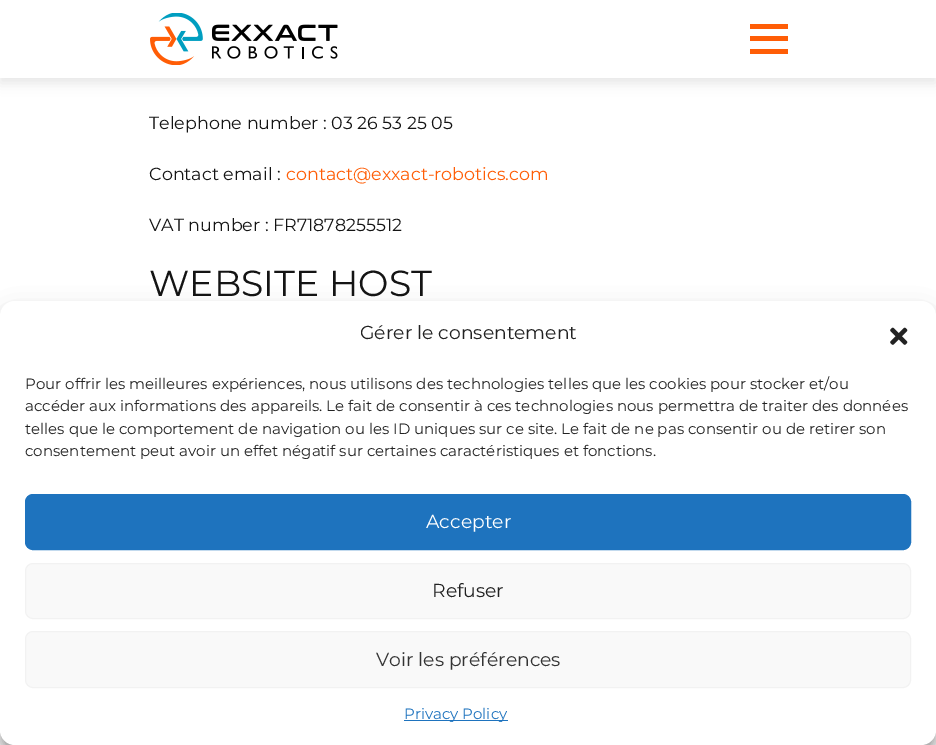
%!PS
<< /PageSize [936 745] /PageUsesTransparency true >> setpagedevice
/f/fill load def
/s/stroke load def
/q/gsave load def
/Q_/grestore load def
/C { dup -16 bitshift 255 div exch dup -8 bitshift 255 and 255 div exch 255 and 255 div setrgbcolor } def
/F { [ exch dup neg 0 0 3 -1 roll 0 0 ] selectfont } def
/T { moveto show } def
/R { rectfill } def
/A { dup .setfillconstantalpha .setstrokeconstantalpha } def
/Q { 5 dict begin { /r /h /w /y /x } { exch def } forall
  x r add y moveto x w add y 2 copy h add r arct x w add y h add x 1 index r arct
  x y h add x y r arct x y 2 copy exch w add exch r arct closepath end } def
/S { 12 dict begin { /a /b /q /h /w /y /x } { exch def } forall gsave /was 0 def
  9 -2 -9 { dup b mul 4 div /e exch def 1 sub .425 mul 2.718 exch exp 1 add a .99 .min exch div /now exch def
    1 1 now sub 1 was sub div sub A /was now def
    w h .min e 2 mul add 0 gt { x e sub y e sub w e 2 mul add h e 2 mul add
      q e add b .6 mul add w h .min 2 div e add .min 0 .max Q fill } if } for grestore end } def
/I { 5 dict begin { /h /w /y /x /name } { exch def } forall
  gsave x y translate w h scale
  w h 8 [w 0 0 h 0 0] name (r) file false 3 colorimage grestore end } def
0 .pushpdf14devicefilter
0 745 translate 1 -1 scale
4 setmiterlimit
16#FFFFFF C
0 0 936 745 R
16#000000 C
0 5 936 78 0 6 .1 S
16#FFFFFF C
0 0 936 78 R
(1.rgb) 150 13 188 52 I
16#FF5D06 C
750 24 38 5 R
750 36 38 5 R
750 49 38 5 R
/Montserrat-Regular 17.5 F
16#141414 C
(Telephone number : 03 26 53 25 05) 149 129 T
(Contact email :) 149 180 T
16#FF5D06 C
(contact@exxact-robotics.com) 286 180 T
16#141414 C
(VAT number : FR71878255512) 149 231 T
/Montserrat-Regular 36.25 F
(WEBSITE HOST) 149 296 T
16#000000 C
0 309 936 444 15 4 .23 S
0 314 936 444 15 12.5 .19 S
16#FFFFFF C
0 301 936 444 15 Q f
/Montserrat-Regular 18.75 F
16#222222 C
(Gérer le consentement) 360 339 T
(2.rgb) 890 327 18 18 I
/Montserrat-Regular 15 F
(Pour offrir les meilleures expériences, nous utilisons des technologies telles que les cookies pour stocker et/ou) 25 389 T
(accéder aux informations des appareils. Le fait de consentir à ces technologies nous permettra de traiter des données) 25 411 T
(telles que le comportement de navigation ou les ID uniques sur ce site. Le fait de ne pas consentir ou de retirer son) 25 434 T
(consentement peut avoir un effet négatif sur certaines caractéristiques et fonctions.) 25 456 T
16#1E73BE C
25.5 494.5 885 55 7.5 Q q f Q_
s
/Montserrat-Regular 18.75 F
16#FFFFFF C
(Accepter) 426 528 T
16#F9F9F9 C
25.5 563.5 885 55 7.5 Q q f Q_
16#F2F2F2 C
s
16#222222 C
(Refuser) 432 597 T
16#F9F9F9 C
25.5 631.5 885 56 7.5 Q q f Q_
16#F2F2F2 C
s
16#333333 C
(Voir les préférences) 376 666 T
16#1E73BE C
404 720 104 1 R
/Montserrat-Regular 15 F
(Privacy Policy) 404 719 T
.poppdf14devicefilter showpage
